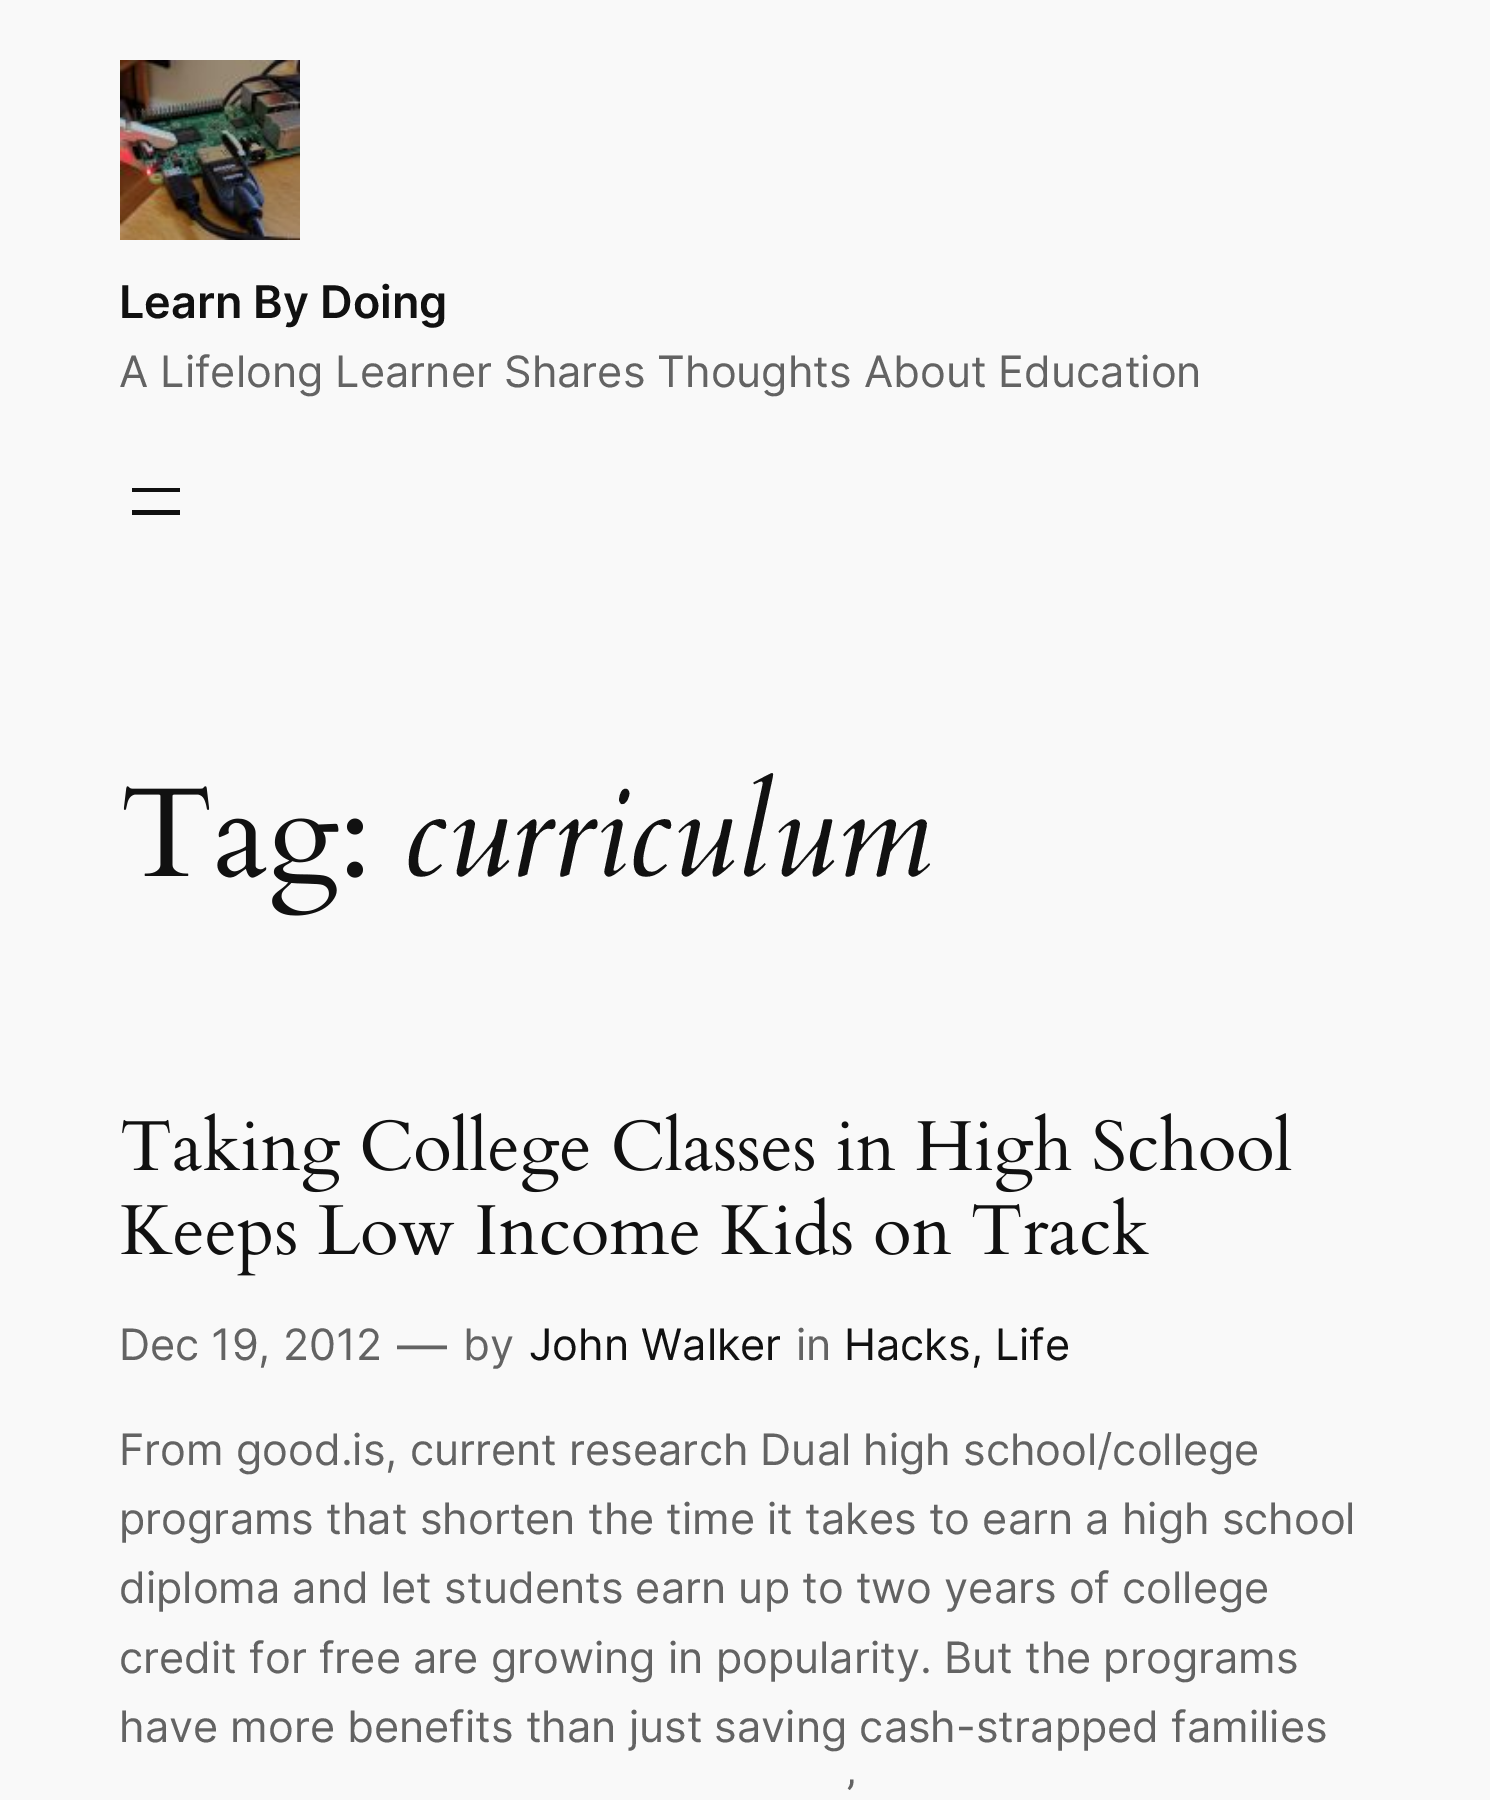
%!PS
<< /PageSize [1490 1800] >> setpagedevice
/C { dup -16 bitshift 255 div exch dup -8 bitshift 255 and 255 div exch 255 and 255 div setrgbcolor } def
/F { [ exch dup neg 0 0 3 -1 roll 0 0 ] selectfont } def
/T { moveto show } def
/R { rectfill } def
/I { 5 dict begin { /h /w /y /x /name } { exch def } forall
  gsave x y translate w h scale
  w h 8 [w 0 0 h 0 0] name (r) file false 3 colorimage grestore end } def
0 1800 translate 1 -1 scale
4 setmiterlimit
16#F9F9F9 C
0 0 1490 1800 R
(1.rgb) 120 60 180 180 I
/Inter-SemiBold 45 F
16#111111 C
(Learn By Doing) 119 318 T
/Inter-Regular 43.2 F
16#636363 C
(A Lifelong Learner Shares Thoughts About Education) 119 387 T
16#111111 C
132 488 48 4 R
132 510 48 5 R
(2.rgb) 123 786 240 130 I
/Cardo-Italic 127 F
(curriculum) 404 875 T
(3.rgb) 122 1113 1170 80 I
(4.rgb) 121 1197 1028 79 I
/Inter-Regular 43.2 F
16#636363 C
(Dec 19, 2012) 119 1360 T
/Inter-Regular 50 F
(—) 397 1363 T
/Inter-Regular 43.2 F
(by) 463 1360 T
16#111111 C
(John Walker) 529 1360 T
16#636363 C
(in) 796 1360 T
16#111111 C
(Hacks, Life) 844 1360 T
16#636363 C
(From good.is, current research Dual high school/college) 119 1465 T
(programs that shorten the time it takes to earn a high school) 119 1534 T
(diploma and let students earn up to two years of college) 119 1603 T
(credit for free are growing in popularity. But the programs) 119 1673 T
(have more benefits than just saving cash-strapped families) 119 1742 T
(’) 847 1811 T
showpage
